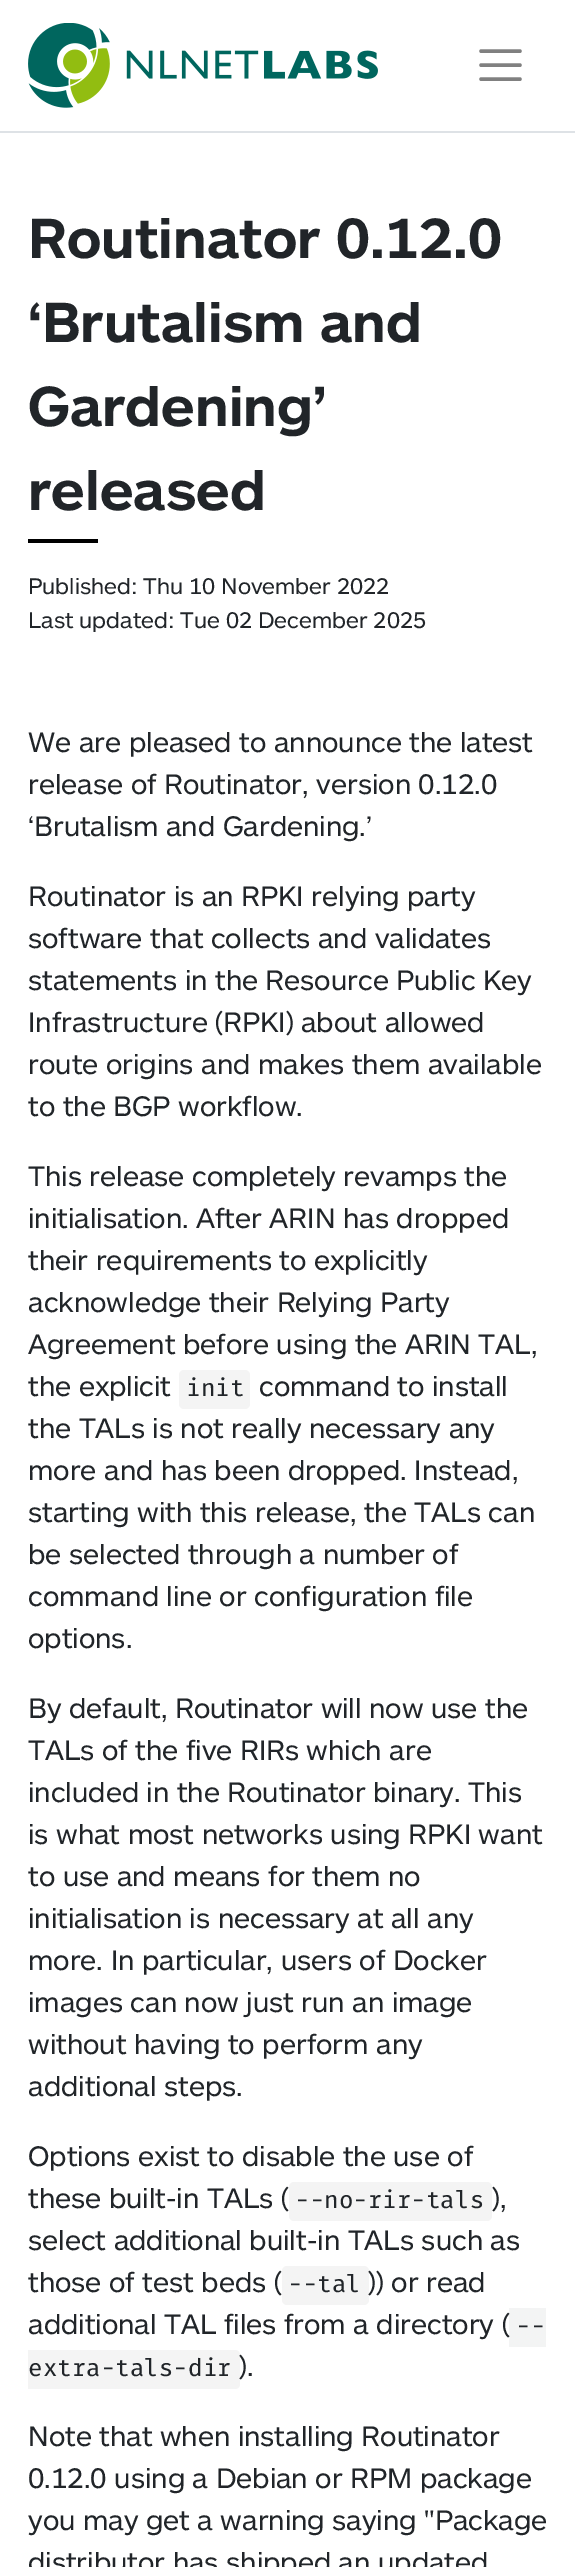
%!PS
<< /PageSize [575 2567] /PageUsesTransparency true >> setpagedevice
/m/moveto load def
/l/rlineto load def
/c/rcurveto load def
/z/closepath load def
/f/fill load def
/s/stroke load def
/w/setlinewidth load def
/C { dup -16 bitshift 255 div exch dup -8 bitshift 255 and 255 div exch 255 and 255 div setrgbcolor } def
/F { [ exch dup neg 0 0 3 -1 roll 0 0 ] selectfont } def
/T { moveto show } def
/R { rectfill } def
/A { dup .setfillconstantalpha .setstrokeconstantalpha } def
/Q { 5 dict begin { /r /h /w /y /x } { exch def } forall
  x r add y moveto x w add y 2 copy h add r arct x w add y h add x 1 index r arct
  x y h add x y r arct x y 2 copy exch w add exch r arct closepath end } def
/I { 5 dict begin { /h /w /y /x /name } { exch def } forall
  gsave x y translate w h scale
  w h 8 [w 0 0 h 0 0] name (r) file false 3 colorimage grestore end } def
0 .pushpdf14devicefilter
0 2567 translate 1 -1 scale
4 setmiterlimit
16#FFFFFF C
0 0 575 2567 R
16#DEE2E6 C
0 131 575 2 R
(1.rgb) 28 23 350 85 I
16#808080 C
3.5 w
1 setlinecap
481 51 m 39 0 l 481 65 m 39 0 l 481 79 m 39 0 l s
/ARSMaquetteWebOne-Bold 56 F
16#212529 C
(Routinator 0.12.0) 28 258 T
(‘Brutalism and) 28 342 T
(Gardening’) 28 426 T
(released) 28 510 T
16#000000 C
28 539 70 4 R
/ARSMaquetteWebOne-Regular 22.4 F
16#212529 C
(Published: Thu 10 November 2022) 28 594 T
(Last updated: Tue 02 December 2025) 28 628 T
/ARSMaquetteWebOne-Regular 28 F
(We are pleased to announce the latest) 28 752 T
(release of Routinator, version 0.12.0) 28 794 T
(‘Brutalism and Gardening.’) 28 836 T
(Routinator is an RPKI relying party) 28 906 T
(software that collects and validates) 28 948 T
(statements in the Resource Public Key) 28 990 T
(Infrastructure \(RPKI\) about allowed) 28 1032 T
(route origins and makes them available) 28 1074 T
(to the BGP workflow.) 28 1116 T
(This release completely revamps the) 28 1186 T
(initialisation. After ARIN has dropped) 28 1228 T
(their requirements to explicitly) 28 1270 T
(acknowledge their Relying Party) 28 1312 T
(Agreement before using the ARIN TAL,) 28 1354 T
(the explicit) 28 1396 T
16#F4F4F4 C
179 1370 71 39 5 Q f
/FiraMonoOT-Regular 24.25 F
16#212529 C
(init) 186 1396 T
/ARSMaquetteWebOne-Regular 28 F
(command to install) 259 1396 T
(the TALs is not really necessary any) 28 1438 T
(more and has been dropped. Instead,) 28 1480 T
(starting with this release, the TALs can) 28 1522 T
(be selected through a number of) 28 1564 T
(command line or configuration file) 28 1606 T
(options.) 28 1648 T
(By default, Routinator will now use the) 28 1718 T
(TALs of the five RIRs which are) 28 1760 T
(included in the Routinator binary. This) 28 1802 T
(is what most networks using RPKI want) 28 1844 T
(to use and means for them no) 28 1886 T
(initialisation is necessary at all any) 28 1928 T
(more. In particular, users of Docker) 28 1970 T
(images can now just run an image) 28 2012 T
(without having to perform any) 28 2054 T
(additional steps.) 28 2096 T
(Options exist to disable the use of) 28 2166 T
(these built-in TALs \() 28 2208 T
16#F4F4F4 C
289 2182 203 39 5 Q f
/FiraMonoOT-Regular 24.25 F
16#212529 C
(--no-rir-tals) 295 2208 T
/ARSMaquetteWebOne-Regular 28 F
(\),) 492 2208 T
(select additional built-in TALs such as) 28 2250 T
(those of test beds \() 28 2292 T
16#F4F4F4 C
282 2266 87 39 5 Q f
/FiraMonoOT-Regular 24.25 F
16#212529 C
(--tal) 288 2292 T
/ARSMaquetteWebOne-Regular 28 F
(\)\) or read) 368 2292 T
(additional TAL files from a directory \() 28 2334 T
0.05 A
16#1B1F23 C
509 2308 37 39 R
/FiraMonoOT-Regular 24.25 F
1 A
16#212529 C
(--) 516 2334 T
16#F4F4F4 C
28 2350 m 207 0 l 3 0 5 2 5 5 c 0 29 l 0 3 -2 5 -5 5 c -207 0 l z f
16#212529 C
(extra-tals-dir) 28 2376 T
/ARSMaquetteWebOne-Regular 28 F
(\).) 239 2376 T
(Note that when installing Routinator) 28 2446 T
(0.12.0 using a Debian or RPM package) 28 2488 T
(you may get a warning saying "Package) 28 2530 T
(distributor has shipped an updated) 28 2572 T
.poppdf14devicefilter showpage
